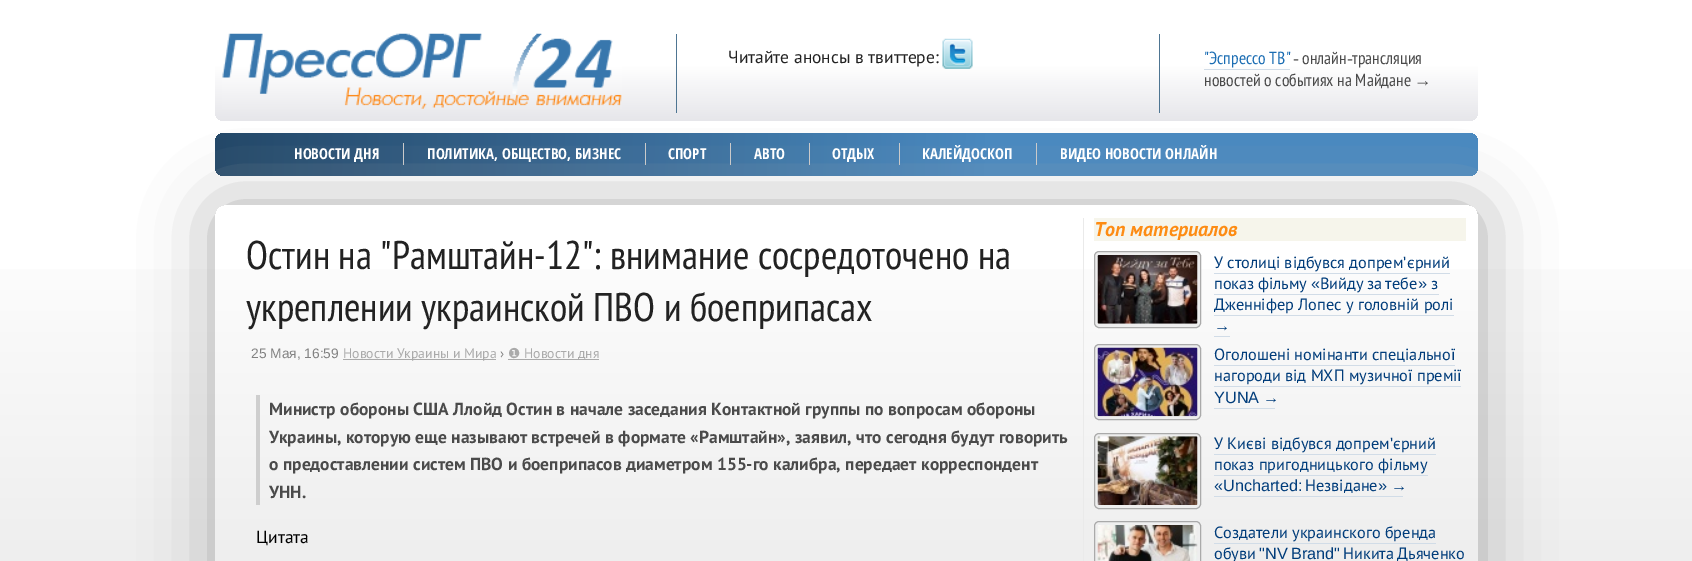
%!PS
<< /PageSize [1692 561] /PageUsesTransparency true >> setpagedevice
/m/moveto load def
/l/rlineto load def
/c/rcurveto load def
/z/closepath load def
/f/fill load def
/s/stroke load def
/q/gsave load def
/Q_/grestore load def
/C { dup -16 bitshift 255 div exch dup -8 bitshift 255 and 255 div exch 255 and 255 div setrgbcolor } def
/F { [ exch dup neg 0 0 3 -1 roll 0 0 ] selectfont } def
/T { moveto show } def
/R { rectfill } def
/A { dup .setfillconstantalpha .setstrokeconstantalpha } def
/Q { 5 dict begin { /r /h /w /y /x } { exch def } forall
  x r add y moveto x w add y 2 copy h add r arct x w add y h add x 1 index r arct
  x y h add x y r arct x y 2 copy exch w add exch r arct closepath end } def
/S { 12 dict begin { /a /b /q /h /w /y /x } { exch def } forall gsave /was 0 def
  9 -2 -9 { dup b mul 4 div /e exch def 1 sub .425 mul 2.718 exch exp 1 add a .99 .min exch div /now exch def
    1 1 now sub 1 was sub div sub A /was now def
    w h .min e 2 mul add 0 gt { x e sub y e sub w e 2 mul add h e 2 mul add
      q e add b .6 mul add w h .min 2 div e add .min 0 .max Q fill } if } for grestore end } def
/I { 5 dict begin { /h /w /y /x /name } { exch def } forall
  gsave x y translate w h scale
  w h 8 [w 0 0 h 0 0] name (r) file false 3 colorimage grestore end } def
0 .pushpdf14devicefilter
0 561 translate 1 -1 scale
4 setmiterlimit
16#FFFFFF C
0 0 1692 561 R
q 0 269 m 1692 0 l 0 292 l -1692 0 l z clip newpath
<< /ShadingType 2 /ColorSpace /DeviceRGB /Coords [0 561 0 0] /Extend [true true] /Function << /FunctionType 3 /Domain [0 1] /Functions [<< /FunctionType 2 /Domain [0 1] /C0 [.933 .933 .933] /C1 [1 1 1] /N 1 >> << /FunctionType 2 /Domain [0 1] /C0 [1 1 1] /C1 [1 1 1] /N 1 >>] /Bounds [.61] /Encode [0 1 0 1] >> >> shfill Q_
q 215 30 1263 91 9 Q clip newpath
<< /ShadingType 2 /ColorSpace /DeviceRGB /Coords [215 121 215 30] /Extend [true true] /Function << /FunctionType 3 /Domain [0 1] /Functions [<< /FunctionType 2 /Domain [0 1] /C0 [.902 .902 .918] /C1 [1 1 1] /N 1 >> << /FunctionType 2 /Domain [0 1] /C0 [1 1 1] /C1 [1 1 1] /N 1 >>] /Bounds [.61] /Encode [0 1 0 1] >> >> shfill Q_
16#4E7592 C
676 34 1 79 R
(1.rgb) 222 33 400 76 I
/PTSans-Regular 17.5 F
16#222222 C
(Читайте анонсы в твиттере:) 728 63 T
(2.rgb) 942 38 31 31 I
q 215 133 1263 43 9 Q clip newpath
<< /ShadingType 2 /ColorSpace /DeviceRGB /Coords [215 133 1478 176] /Extend [true true] /Function << /FunctionType 3 /Domain [0 1] /Functions [<< /FunctionType 2 /Domain [0 1] /C0 [.125 .271 .4] /C1 [.278 .533 .753] /N 1 >> << /FunctionType 2 /Domain [0 1] /C0 [.278 .533 .753] /C1 [.278 .533 .753] /N 1 >>] /Bounds [.61] /Encode [0 1 0 1] >> >> shfill Q_
16#CCCCCC C
403 143 1 22 R
645 143 1 22 R
730 143 1 22 R
809 143 1 22 R
899 143 1 22 R
1036 143 1 22 R
q
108 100 m 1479 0 l 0 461 l -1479 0 l z 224 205 m 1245 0 l 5 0 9 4 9 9 c 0 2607 l 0 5 -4 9 -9 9 c -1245 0 l -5 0 -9 -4 -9 -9 c 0 -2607 l 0 -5 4 -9 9 -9 c z eoclip newpath
16#AAAAAA C
216 208 1263 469 9 35.5 1 S
Q_
16#4E7592 C
1159 34 1 79 R
/PTSansNarrow-Regular 17.5 F
16#1B6DB3 C
("Эспрессо ТВ") 1204 64 T
16#D1DCE7 C
1204 69 86 1 R
/LiberationSerif-Regular 17.5 F
16#4A4A4A C
(-) 1293 64 T
/PTSansNarrow-Regular 17.5 F
(онлайн) 1302 64 T
/LiberationSerif-Regular 17.5 F
(-) 1347 64 T
/PTSansNarrow-Regular 17.5 F
(трансляция) 1352 64 T
(новостей о событиях на Майдане) 1204 86 T
/LiberationSerif-Regular 17.5 F
(→) 1414 86 T
/OpenSansCondensed-Bold 15 F
16#FFFFFF C
(НОВОСТИ ДНЯ) 294 159 T
(ПОЛИТИКА, ОБЩЕСТВО, БИЗНЕС) 427 159 T
(СПОРТ) 668 159 T
(АВТО) 754 159 T
(ОТДЫХ) 832 159 T
(КАЛЕЙДОСКОП) 922 159 T
(ВИДЕО НОВОСТИ ОНЛАЙН) 1060 159 T
/PTSansNarrow-Regular 40 F
16#222222 C
(Остин на "Рамштайн-12": внимание сосредоточено на) 246 269 T
(укреплении украинской ПВО и боеприпасах) 246 321 T
/LiberationSans-Regular 13.75 F
16#828282 C
(25 Мая, 16:59) 251 358 T
16#AAAAAA C
343 359 153 1 R
/PTSans-Regular 13.75 F
(Новости Украины и Мира) 343 358 T
16#828282 C
(›) 500 358 T
/DejaVuSans-Regular 13.75 F
16#AAAAAA C
(❶) 508 358 T
508 359 91 1 R
/PTSans-Regular 13.75 F
(Новости дня) 524 358 T
16#CECECE C
256 395 4 110 R
/PTSans-Bold 17.5 F
16#4A4A4A C
(Министр обороны США Ллойд Остин в начале заседания Контактной группы по вопросам обороны) 269 415 T
(Украины, которую еще называют встречей в формате «Рамштайн», заявил, что сегодня будут говорить) 269 443 T
(о предоставлении систем ПВО и боеприпасов диаметром 155-го калибра, передает корреспондент) 269 470 T
(УНН.) 269 498 T
/PTSans-Regular 17.5 F
16#000000 C
(Цитата) 256 543 T
16#EAEAEA C
1083 218 1 343 R
16#F6F5EB C
1094 218 372 23 R
/PTSans-BoldItalic 20 F
16#FD8C14 C
(Топ материалов) 1094 236 T
16#EEEEEE C
1094.5 251.5 106 76 4.5 Q q f Q_
16#AAAAAA C
s
(3.rgb) 1097 255 101 69 I
/PTSans-Regular 16.25 F
16#003C7A C
(У столиці відбувся допрем) 1214 268 T
16#D1DCE7 C
1214 273 236 1 R
/LiberationSans-Regular 16.25 F
16#003C7A C
(') 1403 268 T
/PTSans-Regular 16.25 F
(єрний) 1407 268 T
1214 289 m -1 0 32 (показ фільму) widthshow
16#D1DCE7 C
1214 294 225 1 R
/LiberationSans-Regular 16.25 F
16#003C7A C
(«) 1311 289 T
/PTSans-Regular 16.25 F
1320 289 m -1 0 32 (Вийду за тебе) widthshow
/LiberationSans-Regular 16.25 F
(») 1418 289 T
/PTSans-Regular 16.25 F
(з) 1431 289 T
(Дженніфер Лопес у головній ролі) 1214 310 T
16#D1DCE7 C
1214 315 240 1 R
/LiberationSans-Regular 16.25 F
16#003C7A C
(→) 1214 331 T
16#D1DCE7 C
1214 336 16 1 R
16#EEEEEE C
1094.5 344.5 106 75 4.5 Q q f Q_
16#AAAAAA C
s
(4.rgb) 1097 347 101 70 I
/PTSans-Regular 16.25 F
16#003C7A C
(Оголошені номінанти спеціальної) 1214 360 T
16#D1DCE7 C
1214 365 241 1 R
16#003C7A C
(нагороди від МХП музичної премії) 1214 381 T
16#D1DCE7 C
1214 386 247 1 R
/LiberationSans-Regular 16.25 F
16#003C7A C
1214 403 m -1 0 32 (YUNA →) widthshow
16#D1DCE7 C
1214 408 61 1 R
16#EEEEEE C
1094.5 433.5 106 75 4.5 Q q f Q_
16#AAAAAA C
s
(5.rgb) 1097 436 101 69 I
/PTSans-Regular 16.25 F
16#003C7A C
(У Києві відбувся допрем) 1214 449 T
16#D1DCE7 C
1214 454 222 1 R
/LiberationSans-Regular 16.25 F
16#003C7A C
(') 1390 449 T
/PTSans-Regular 16.25 F
(єрний) 1393 449 T
(показ пригодницького фільму) 1214 470 T
16#D1DCE7 C
1214 475 214 1 R
/LiberationSans-Regular 16.25 F
16#003C7A C
(«Uncharted:) 1214 491 T
/PTSans-Regular 16.25 F
(Незвідане) 1305 491 T
/LiberationSans-Regular 16.25 F
1378 491 m -1 0 32 (» →) widthshow
16#D1DCE7 C
1214 496 189 1 R
16#AAAAAA C
1094.5 521.5 106 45 4.5 Q s
(6.rgb) 1097 525 101 36 I
/PTSans-Regular 16.25 F
16#003C7A C
(Создатели украинского бренда) 1214 538 T
16#D1DCE7 C
1214 543 222 1 R
16#003C7A C
(обуви) 1214 559 T
/LiberationSans-Regular 16.25 F
("NV) 1259 559 T
(Brand") 1291 559 T
/PTSans-Regular 16.25 F
1343 559 m -1 0 32 (Никита Дьяченко) widthshow
.poppdf14devicefilter showpage
